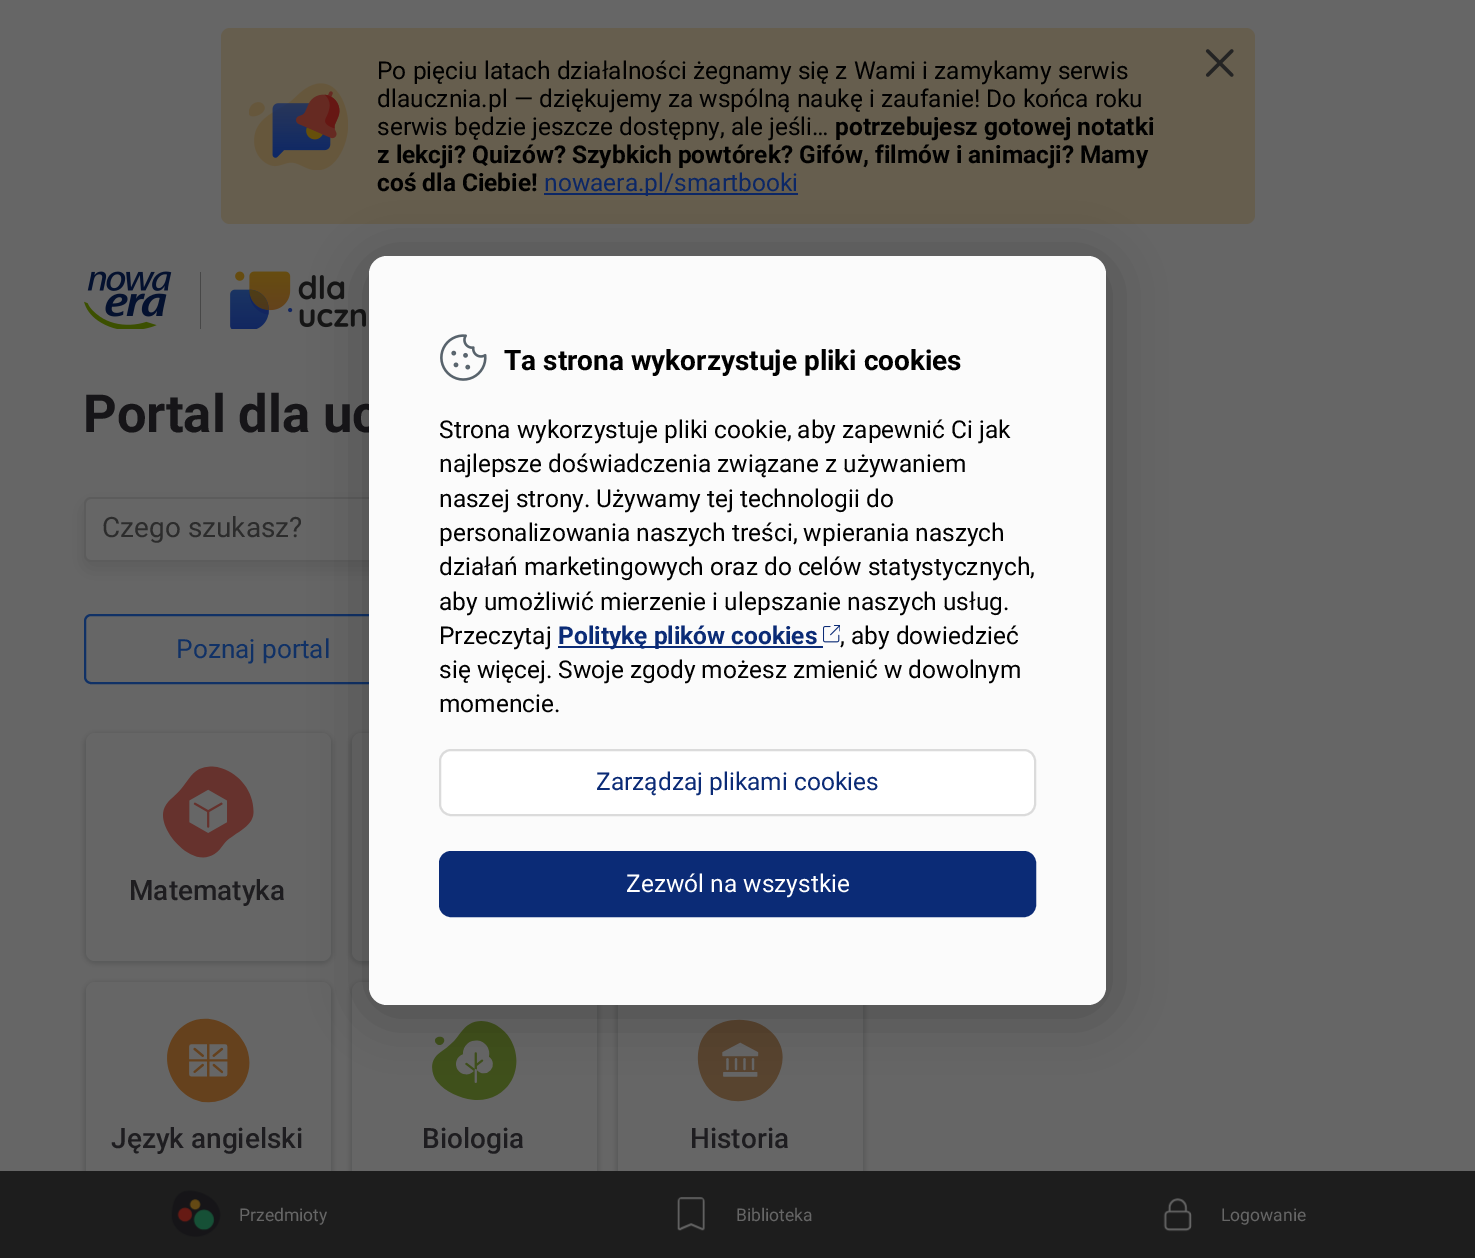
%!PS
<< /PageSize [1475 1258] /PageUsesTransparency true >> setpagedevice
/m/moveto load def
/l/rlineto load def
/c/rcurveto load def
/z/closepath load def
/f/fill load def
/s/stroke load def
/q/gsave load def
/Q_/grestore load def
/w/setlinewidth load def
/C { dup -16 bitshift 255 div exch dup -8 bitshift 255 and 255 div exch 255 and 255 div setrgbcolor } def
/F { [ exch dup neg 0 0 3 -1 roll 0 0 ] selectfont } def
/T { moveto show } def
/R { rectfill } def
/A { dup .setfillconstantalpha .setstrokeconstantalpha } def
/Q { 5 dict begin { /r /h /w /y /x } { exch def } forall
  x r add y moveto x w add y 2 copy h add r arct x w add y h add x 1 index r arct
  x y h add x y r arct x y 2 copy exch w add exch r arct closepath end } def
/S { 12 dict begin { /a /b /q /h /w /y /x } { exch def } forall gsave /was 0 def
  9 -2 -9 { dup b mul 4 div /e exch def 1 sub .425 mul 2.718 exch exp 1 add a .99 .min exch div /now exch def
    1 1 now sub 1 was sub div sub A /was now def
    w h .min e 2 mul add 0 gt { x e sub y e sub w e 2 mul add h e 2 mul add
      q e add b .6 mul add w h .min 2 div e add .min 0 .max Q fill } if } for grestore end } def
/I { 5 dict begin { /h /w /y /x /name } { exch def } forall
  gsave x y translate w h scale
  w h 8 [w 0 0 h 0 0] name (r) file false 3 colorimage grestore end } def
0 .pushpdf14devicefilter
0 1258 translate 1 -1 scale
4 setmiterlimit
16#666666 C
0 0 1475 1258 R
16#665E4E C
221 28 1034 196 9 Q f
(1.rgb) 249 83 99 87 I
/Roboto-Regular 24.5 F
16#000000 C
(Po pięciu latach działalności żegnamy się z Wami i zamykamy serwis) 377 79 T
(dlaucznia.pl — dziękujemy za wspólną naukę i zaufanie! Do końca roku) 377 107 T
(serwis będzie jeszcze dostępny, ale jeśli…) 377 135 T
/Roboto-Bold 24.5 F
(potrzebujesz gotowej notatki) 835 135 T
(z lekcji? Quizów? Szybkich powtórek? Gifów, filmów i animacji? Mamy) 377 163 T
(coś dla Ciebie!) 377 191 T
16#0C2766 C
544 193 254 2 R
/Roboto-Regular 24.5 F
(nowaera.pl/smartbooki) 544 191 T
(2.rgb) 1205 49 29 28 I
(3.rgb) 84 271 282 58 I
/Roboto-Bold 52.5 F
16#161518 C
(Portal dla uc) 83 432 T
16#000000 C
84 504 700 65 7 9.5 .1 S
16#666666 C
91 497 m 588 0 l 0 65 l -588 0 l -4 0 -7 -3 -7 -7 c 0 -51 l 0 -4 3 -7 7 -7 c z f
0.1 A
16#000000 C
91 497 m 588 0 l 0 65 l -588 0 l -4 0 -7 -3 -7 -7 c 0 -51 l 0 -4 3 -7 7 -7 c z 91 499 m 588 0 l 0 61 l -588 0 l -3 0 -5 -2 -5 -5 c 0 -51 l 0 -3 2 -5 5 -5 c z eofill
/Roboto-Regular 28 F
1 A
16#2C2C2C C
(Czego szukasz?) 102 537 T
16#103166 C
2 w
85 615 338 68 6 Q s
/Roboto-Regular 26.25 F
(Poznaj portal) 176 658 T
16#181A1B C
84 733 249 231 11 2.5 .16 S
16#666666 C
86 733 245 228 9 Q f
(4.rgb) 163 766 91 92 I
/Roboto-Medium 28 F
16#1E1D20 C
(Matematyka) 129 900 T
16#181A1B C
350 733 249 231 11 2.5 .16 S
16#666666 C
352 733 245 228 9 Q f
16#181A1B C
84 982 249 231 11 2.5 .16 S
16#666666 C
86 982 245 227 9 Q f
(5.rgb) 167 1018 83 85 I
16#1E1D20 C
(Język angielski) 111 1148 T
16#181A1B C
350 982 249 231 11 2.5 .16 S
16#666666 C
352 982 245 227 9 Q f
(6.rgb) 432 1021 85 79 I
16#1E1D20 C
(Biologia) 422 1148 T
16#181A1B C
616 982 249 231 11 2.5 .16 S
16#666666 C
618 1005 245 166 R
(7.rgb) 697 1019 86 83 I
16#1E1D20 C
(Historia) 690 1148 T
16#1D1D1D C
0 1171 1475 87 R
(8.rgb) 171 1190 50 47 I
/Roboto-Regular 17.5 F
16#666666 C
(Przedmioty) 239 1221 T
(9.rgb) 677 1197 28 34 I
(Biblioteka) 736 1221 T
(10.rgb) 1163 1198 29 34 I
(Logowanie) 1221 1221 T
16#000000 C
369 263 737 749 18 28 .25 S
16#FBFBFB C
369 256 737 749 18 Q f
(11.rgb) 440 334 47 47 I
/Roboto-Bold 28 F
16#000000 C
(Ta strona wykorzystuje pliki cookies) 504 370 T
/Roboto-Regular 24.5 F
(Strona wykorzystuje pliki cookie, aby zapewnić Ci jak) 439 438 T
(najlepsze doświadczenia związane z używaniem) 439 472 T
(naszej strony. Używamy tej technologii do) 439 507 T
(personalizowania naszych treści, wpierania naszych) 439 541 T
(działań marketingowych oraz do celów statystycznych,) 439 575 T
(aby umożliwić mierzenie i ulepszanie naszych usług.) 439 610 T
(Przeczytaj) 439 644 T
16#0B2B76 C
558 646 265 2 R
/Roboto-Bold 24.5 F
(Politykę plików cookies) 558 644 T
(12.rgb) 823 625 17 18 I
/Roboto-Regular 24.5 F
16#000000 C
(, aby dowiedzieć) 840 644 T
(się więcej. Swoje zgody możesz zmienić w dowolnym) 439 678 T
(momencie.) 439 712 T
16#FFFFFF C
440 750 595 65 11 Q q f Q_
16#DBDBDB C
s
16#0B2B76 C
(Zarządzaj plikami cookies) 596 790 T
440 852 595 64 11 Q q f Q_
s
16#FFFFFF C
(Zezwól na wszystkie) 626 892 T
.poppdf14devicefilter showpage
